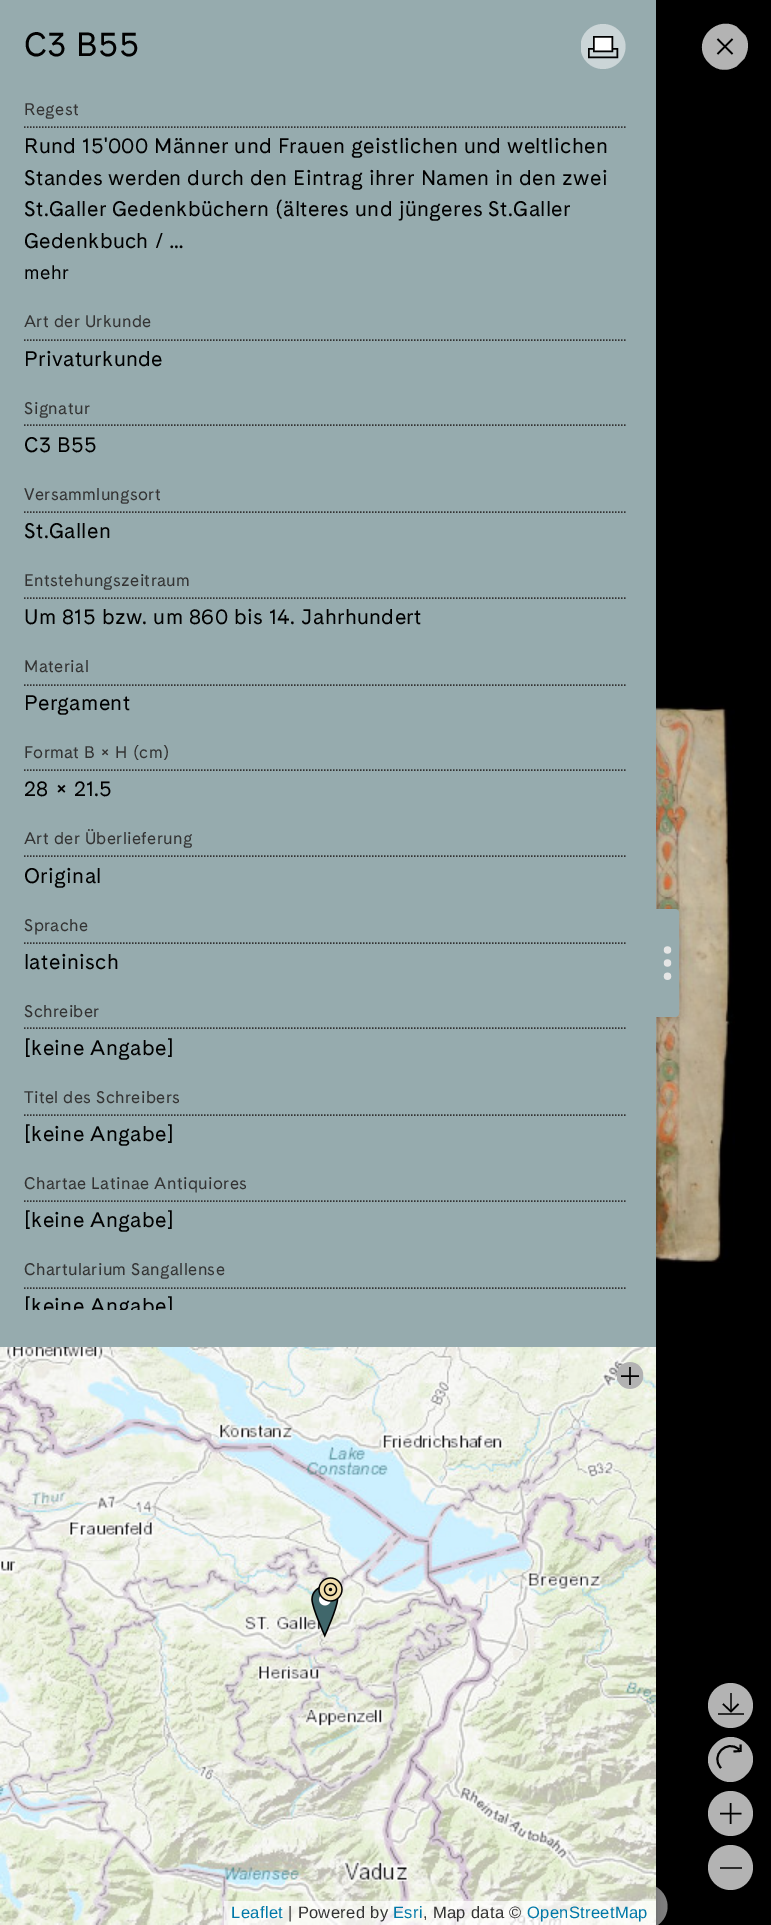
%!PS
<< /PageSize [771 1925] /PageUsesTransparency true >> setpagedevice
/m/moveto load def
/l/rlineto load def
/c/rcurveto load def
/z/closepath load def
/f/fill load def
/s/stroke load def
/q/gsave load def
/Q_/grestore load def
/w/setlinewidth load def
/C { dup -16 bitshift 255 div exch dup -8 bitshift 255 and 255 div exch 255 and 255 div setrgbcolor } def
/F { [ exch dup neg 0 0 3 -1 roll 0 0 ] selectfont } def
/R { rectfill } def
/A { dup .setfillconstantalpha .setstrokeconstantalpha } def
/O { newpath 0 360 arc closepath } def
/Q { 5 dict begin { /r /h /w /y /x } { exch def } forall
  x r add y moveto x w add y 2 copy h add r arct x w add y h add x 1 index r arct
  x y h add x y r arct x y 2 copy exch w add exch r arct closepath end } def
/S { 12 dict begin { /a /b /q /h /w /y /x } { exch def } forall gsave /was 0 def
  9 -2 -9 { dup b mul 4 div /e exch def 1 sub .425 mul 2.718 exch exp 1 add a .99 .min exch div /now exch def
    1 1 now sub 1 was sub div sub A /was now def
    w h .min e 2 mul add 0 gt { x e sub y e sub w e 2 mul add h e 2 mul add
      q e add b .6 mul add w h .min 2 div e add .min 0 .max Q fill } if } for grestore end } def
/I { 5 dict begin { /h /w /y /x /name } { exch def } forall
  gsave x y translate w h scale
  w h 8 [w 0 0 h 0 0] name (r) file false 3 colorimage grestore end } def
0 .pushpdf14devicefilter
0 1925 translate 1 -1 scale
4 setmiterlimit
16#000000 C
0 0 771 1925 R
(10.rgb) 656 699 79 564 I
16#808080 C
645 1906.5 22.5 O f
16#000000 C
0 0 656 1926 0 6 .2 S
16#96ABAE C
0 0 632 1561 R
16#000000 C
656 909 24 108 0 6 .2 S
16#96ABAE C
632 0 24 1561 R
/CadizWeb-Regular 33.5 F
16#000000 C
24 56 m .35 0 (C3 B55) ashow
q
581 24 45 45 rectclip
16#CBD5D7 C
603 46.5 22.5 O f
Q_
1.5 w
588.75 48.75 28.5 8.5 rectstroke
16#FFFFFF C
593.75 36.75 m 18.5 0 l 0 14.5 l -18.5 0 l z q f Q_
16#000000 C
s
16#333333 C
[1.5 1.5] 0 setdash
24 127 m 601.5 0 l s
/CadizWeb-Regular 16.75 F
24 115 m .35 0 (Regest) ashow
/CadizWeb-Regular 21 F
16#000000 C
24 153 m .35 0 (Rund 15'000 Männer und Frauen geistlichen und weltlichen) ashow
24 185 m .35 0 (Standes werden durch den Eintrag ihrer Namen in den zwei) ashow
24 216 m .35 0 (St.Galler Gedenkbüchern \(älteres und jüngeres St.Galler) ashow
24 248 m .35 0 (Gedenkbuch / …) ashow
/CadizWeb-Regular 19 F
24 279 m .35 0 (mehr) ashow
16#333333 C
24 340 m 601.5 0 l s
/CadizWeb-Regular 16.75 F
24 327 m .35 0 (Art der Urkunde) ashow
/CadizWeb-Regular 21 F
16#000000 C
24 366 m .35 0 (Privaturkunde) ashow
16#333333 C
24 425 m 601.5 0 l s
/CadizWeb-Regular 16.75 F
24 414 m .35 0 (Signatur) ashow
/CadizWeb-Regular 21 F
16#000000 C
24 452 m .35 0 (C3 B55) ashow
16#333333 C
24 512 m 601.5 0 l s
/CadizWeb-Regular 16.75 F
24 500 m .35 0 (Versammlungsort) ashow
/CadizWeb-Regular 21 F
16#000000 C
24 538 m .35 0 (St.Gallen) ashow
16#333333 C
24 598 m 601.5 0 l s
/CadizWeb-Regular 16.75 F
24 586 m .35 0 (Entstehungszeitraum) ashow
/CadizWeb-Regular 21 F
16#000000 C
24 624 m .35 0 (Um 815 bzw. um 860 bis 14. Jahrhundert) ashow
16#333333 C
24 685 m 601.5 0 l s
/CadizWeb-Regular 16.75 F
24 672 m .35 0 (Material) ashow
/CadizWeb-Regular 21 F
16#000000 C
24 710 m .35 0 (Pergament) ashow
16#333333 C
24 770 m 601.5 0 l s
/CadizWeb-Regular 16.75 F
24 758 m .35 0 (Format B × H \(cm\)) ashow
/CadizWeb-Regular 21 F
16#000000 C
24 796 m .35 0 (28 × 21.5) ashow
16#333333 C
24 856 m 601.5 0 l s
/CadizWeb-Regular 16.75 F
24 844 m .35 0 (Art der Überlieferung) ashow
/CadizWeb-Regular 21 F
16#000000 C
24 883 m .35 0 (Original) ashow
16#333333 C
24 943 m 601.5 0 l s
/CadizWeb-Regular 16.75 F
24 931 m .35 0 (Sprache) ashow
/CadizWeb-Regular 21 F
16#000000 C
24 969 m .35 0 (lateinisch) ashow
16#333333 C
24 1028 m 601.5 0 l s
/CadizWeb-Regular 16.75 F
24 1017 m .35 0 (Schreiber) ashow
/CadizWeb-Regular 21 F
16#000000 C
24 1055 m .35 0 ([keine Angabe]) ashow
16#333333 C
24 1115 m 601.5 0 l s
/CadizWeb-Regular 16.75 F
24 1103 m .35 0 (Titel des Schreibers) ashow
/CadizWeb-Regular 21 F
16#000000 C
24 1141 m .35 0 ([keine Angabe]) ashow
16#333333 C
24 1201 m 601.5 0 l s
/CadizWeb-Regular 16.75 F
24 1189 m .35 0 (Chartae Latinae Antiquiores) ashow
/CadizWeb-Regular 21 F
16#000000 C
24 1227 m .35 0 ([keine Angabe]) ashow
16#333333 C
24 1288 m 601.5 0 l s
/CadizWeb-Regular 16.75 F
24 1275 m .35 0 (Chartularium Sangallense) ashow
q
0 0 656 1310 rectclip
/CadizWeb-Regular 21 F
16#000000 C
24 1313 m .35 0 ([keine Angabe]) ashow
Q_
(4.rgb) 582 1347 74 213 I
(1.rgb) 617 1362 27 27 I
(2.rgb) 0 1347 198 213 I
(3.rgb) 198 1347 384 213 I
(5.rgb) 0 1559 198 366 I
(6.rgb) 198 1559 384 366 I
(7.rgb) 582 1559 74 366 I
(8.rgb) 311 1577 32 61 I
0.7 A
16#FFFFFF C
224 1901 432 24 R
/LiberationSans-Regular 16.5 F
1 A
16#0078A8 C
231 1918 m .35 0 (Leaflet) ashow
16#333333 C
288 1918 m .35 0 (| Powered by) ashow
16#0078A8 C
393 1918 m .35 0 (Esri) ashow
16#333333 C
423 1918 m .35 0 (, Map data ©) ashow
16#0078A8 C
527 1918 m .35 0 (OpenStreetMap) ashow
(9.rgb) 656 909 24 108 I
16#B3B3B3 C
744 59 m -7 7 l -8 5 -19 6 -28 -3 c -20 -20 7 -49 28 -36 c 8 8 l 5 8 3 17 -1 24 c z f
16#000000 C
[] 0 setdash
717.5 54 m 15 -15 l 717.5 39 m 15 15 l s
16#B3B3B3 C
730.5 1705.5 22.5 O f
16#000000 C
723 1704 m 8 7.5 l 7.5 -7.5 l s
0.75 A
730 1693 2 18 R
1 A
16#2D2D2D C
718 1713 26 2 R
16#B3B3B3 C
715 1744 m 21 -21 52 10 31 31 c -21 21 -52 -10 -31 -31 c z f
16#000000 C
1.9 w
721 1768 m -11.5 -12 6 -29.5 18 -18.5 c 733.5 1751.5 m 7 -.5 l 0 -6.5 l s
16#B3B3B3 C
730.5 1813.5 22.5 O f
16#000000 C
1.5 w
730.5 1824 m 0 -21 l 720 1813.5 m 21.5 0 l s
16#B3B3B3 C
730.5 1867.5 22.5 O f
16#2D2D2D C
720 1867 22 2 R
.poppdf14devicefilter showpage
